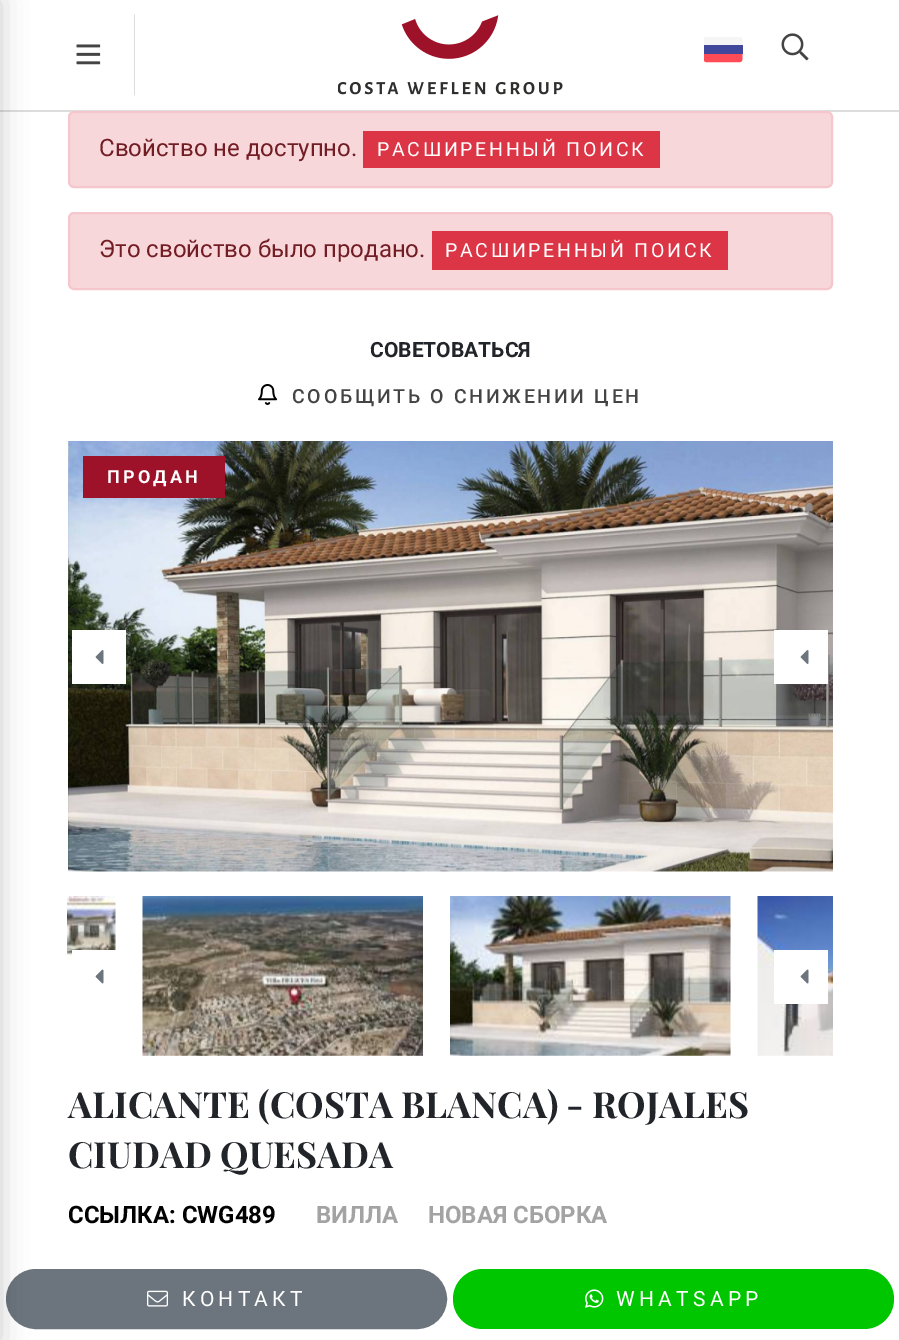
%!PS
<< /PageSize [899 1340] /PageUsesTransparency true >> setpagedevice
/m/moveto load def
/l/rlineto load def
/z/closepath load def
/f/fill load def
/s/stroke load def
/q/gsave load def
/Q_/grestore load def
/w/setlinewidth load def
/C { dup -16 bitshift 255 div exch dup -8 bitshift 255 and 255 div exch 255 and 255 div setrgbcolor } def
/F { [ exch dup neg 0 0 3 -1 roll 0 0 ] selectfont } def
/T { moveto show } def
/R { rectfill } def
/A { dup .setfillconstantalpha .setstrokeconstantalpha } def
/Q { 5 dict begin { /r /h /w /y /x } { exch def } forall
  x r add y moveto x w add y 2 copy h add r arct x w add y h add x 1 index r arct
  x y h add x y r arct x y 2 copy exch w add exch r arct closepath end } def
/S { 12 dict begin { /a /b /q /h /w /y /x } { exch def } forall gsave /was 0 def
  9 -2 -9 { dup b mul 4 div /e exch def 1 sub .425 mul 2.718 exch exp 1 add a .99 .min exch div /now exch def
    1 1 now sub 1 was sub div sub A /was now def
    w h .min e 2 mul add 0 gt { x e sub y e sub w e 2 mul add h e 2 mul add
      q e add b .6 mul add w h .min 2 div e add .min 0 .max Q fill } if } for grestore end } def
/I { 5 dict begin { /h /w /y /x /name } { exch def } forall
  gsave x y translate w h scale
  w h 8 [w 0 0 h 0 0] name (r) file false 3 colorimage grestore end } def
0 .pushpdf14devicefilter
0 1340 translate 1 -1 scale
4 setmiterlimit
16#FFFFFF C
0 0 899 1340 R
16#DDDDDD C
0 110 899 2 R
16#6C757D C
7 1270 439 58 29 Q q f Q_
2 w
s
16#000000 C
-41 0 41 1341 0 13.5 .2 S
16#DDDDDD C
135 14 m 0 82 l -1 -2 l 0 -79 l z f
(1.rgb) 76 44 25 21 I
(2.rgb) 338 15 225 80 I
(3.rgb) 704 37 39 26 I
(4.rgb) 781 33 28 28 I
16#F8D7DA C
69 112 763 75 5 Q q f Q_
16#F5C6CB C
s
/Roboto-Regular 24 F
16#721C24 C
(Свойство не доступно.) 99 156 T
16#DC3545 C
363 131 297 37 R
/Roboto-Regular 19.5 F
16#FFFFFF C
377 156 m 2.7 0 (РАСШИРЕННЫЙ ПОИСК) ashow
16#F8D7DA C
69 213 763 76 5 Q q f Q_
16#F5C6CB C
s
/Roboto-Regular 24 F
16#721C24 C
(Это свойство было продано.) 99 257 T
16#DC3545 C
432 231 296 39 R
/Roboto-Regular 19.5 F
16#FFFFFF C
445 257 m 2.7 0 (РАСШИРЕННЫЙ ПОИСК) ashow
/Roboto-Bold 21 F
16#212529 C
(СОВЕТОВАТЬСЯ) 370 357 T
(5.rgb) 258 384 20 21 I
/Roboto-Medium 19.5 F
16#444444 C
292 403 m 2.7 0 (СООБЩИТЬ О СНИЖЕНИИ ЦЕН) ashow
(6.rgb) 68 441 765 431 I
16#FFFFFF C
72 630 54 54 R
(7.rgb) 95 650 9 14 I
774 630 54 54 R
(7.rgb) 800 650 9 14 I
16#9E1229 C
83 456 142 42 R
/Roboto-Bold 18 F
16#FFFFFF C
107 483 m 3.25 0 (ПРОДАН) ashow
(8.rgb) 67 896 49 66 I
(9.rgb) 142 896 281 160 I
(10.rgb) 450 896 281 160 I
(11.rgb) 757 896 76 160 I
72 950 44 12 R
(12.rgb) 95 969 9 15 I
774 950 54 54 R
(12.rgb) 800 969 9 15 I
/PlayfairDisplay-Bold 36 F
16#212529 C
(ALICANTE \(COSTA BLANCA\) - ROJALES) 68 1118 T
(CIUDAD QUESADA) 68 1168 T
/Roboto-Bold 24 F
16#000000 C
(ССЫЛКА: CWG489) 68 1223 T
16#A3A3A3 C
(ВИЛЛА) 316 1223 T
(НОВАЯ СБОРКА) 428 1223 T
(13.rgb) 147 1290 21 17 I
/Roboto-Regular 21 F
16#FFFFFF C
182 1306 m 4.25 0 (КОНТАКТ) ashow
16#00C600 C
453 1269 441 60 30 Q f
(14.rgb) 585 1289 19 19 I
16#FFFFFF C
616 1306 m 4.25 0 (WHATSAPP) ashow
.poppdf14devicefilter showpage
